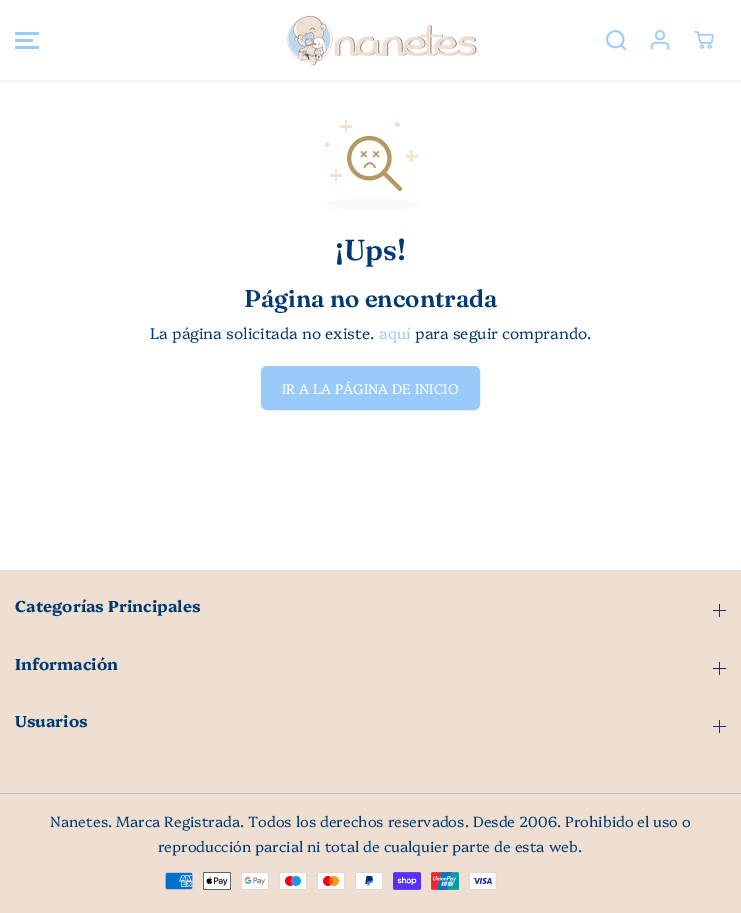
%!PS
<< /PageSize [741 913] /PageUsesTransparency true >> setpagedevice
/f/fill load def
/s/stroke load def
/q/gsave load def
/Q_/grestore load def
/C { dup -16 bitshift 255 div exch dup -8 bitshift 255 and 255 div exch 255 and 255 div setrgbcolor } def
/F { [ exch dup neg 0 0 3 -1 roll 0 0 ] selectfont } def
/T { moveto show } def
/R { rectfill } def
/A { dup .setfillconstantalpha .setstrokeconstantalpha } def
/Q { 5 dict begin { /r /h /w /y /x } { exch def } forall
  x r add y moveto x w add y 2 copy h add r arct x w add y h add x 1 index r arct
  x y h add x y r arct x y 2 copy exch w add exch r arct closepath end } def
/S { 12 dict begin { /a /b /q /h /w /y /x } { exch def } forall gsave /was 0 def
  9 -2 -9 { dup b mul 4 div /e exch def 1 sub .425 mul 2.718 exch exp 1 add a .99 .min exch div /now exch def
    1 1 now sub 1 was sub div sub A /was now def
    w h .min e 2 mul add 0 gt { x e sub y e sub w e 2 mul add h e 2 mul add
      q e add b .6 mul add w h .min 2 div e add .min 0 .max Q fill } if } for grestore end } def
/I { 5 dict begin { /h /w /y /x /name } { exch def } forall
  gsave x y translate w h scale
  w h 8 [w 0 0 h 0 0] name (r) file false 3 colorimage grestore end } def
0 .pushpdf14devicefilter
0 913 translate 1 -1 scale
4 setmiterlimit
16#FFFFFF C
0 0 741 913 R
q
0 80 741 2 rectclip
16#000000 C
0 2 741 80 0 1 .05 S
Q_
16#9ACAF9 C
15 39 18 3 R
15 32 24 3 R
15 46 24 3 R
(1.rgb) 287 15 190 51 I
(2.rgb) 606 30 20 20 I
(3.rgb) 650 30 20 20 I
(4.rgb) 694 31 20 18 I
(5.rgb) 321 120 100 91 I
/Fraunces-SemiBold 29 F
16#003A70 C
(¡Ups!) 335 260 T
/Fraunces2-SemiBold 24.25 F
(Página no encontrada) 244 307 T
/Platypi-Light 15.5 F
(La página solicitada no existe.) 150 339 T
16#9ACAF9 C
(aquí) 379 339 T
16#003A70 C
(para seguir comprando.) 415 339 T
16#9ACAF9 C
261.5 366.5 218 43 5.5 Q q f Q_
s
/Platypi-Light 14 F
16#FFFFFF C
(IR A LA PÁGINA DE INICIO) 282 394 T
16#EFDFD2 C
0 570 741 343 R
/Platypi-Bold 16 F
16#003A70 C
(Categorías Principales) 15 612 T
719 604 1 13 R
713 610 13 1 R
(Información) 15 670 T
719 662 1 13 R
713 668 13 1 R
(Usuarios) 15 727 T
719 720 1 13 R
713 726 13 1 R
16#BFBEBE C
0 793 741 1 R
/Platypi-Light 14.75 F
16#003A70 C
(Nanetes. Marca Registrada. Todos los derechos reservados. Desde 2006. Prohibido el uso o) 50 827 T
(reproducción parcial ni total de cualquier parte de esta web.) 158 852 T
(6.rgb) 165 872 28 18 I
(7.rgb) 203 872 28 18 I
(8.rgb) 241 872 28 18 I
(9.rgb) 279 872 28 18 I
(10.rgb) 317 872 28 18 I
(11.rgb) 355 872 28 18 I
(12.rgb) 393 872 28 18 I
(13.rgb) 431 872 28 18 I
(14.rgb) 469 872 28 18 I
.poppdf14devicefilter showpage
